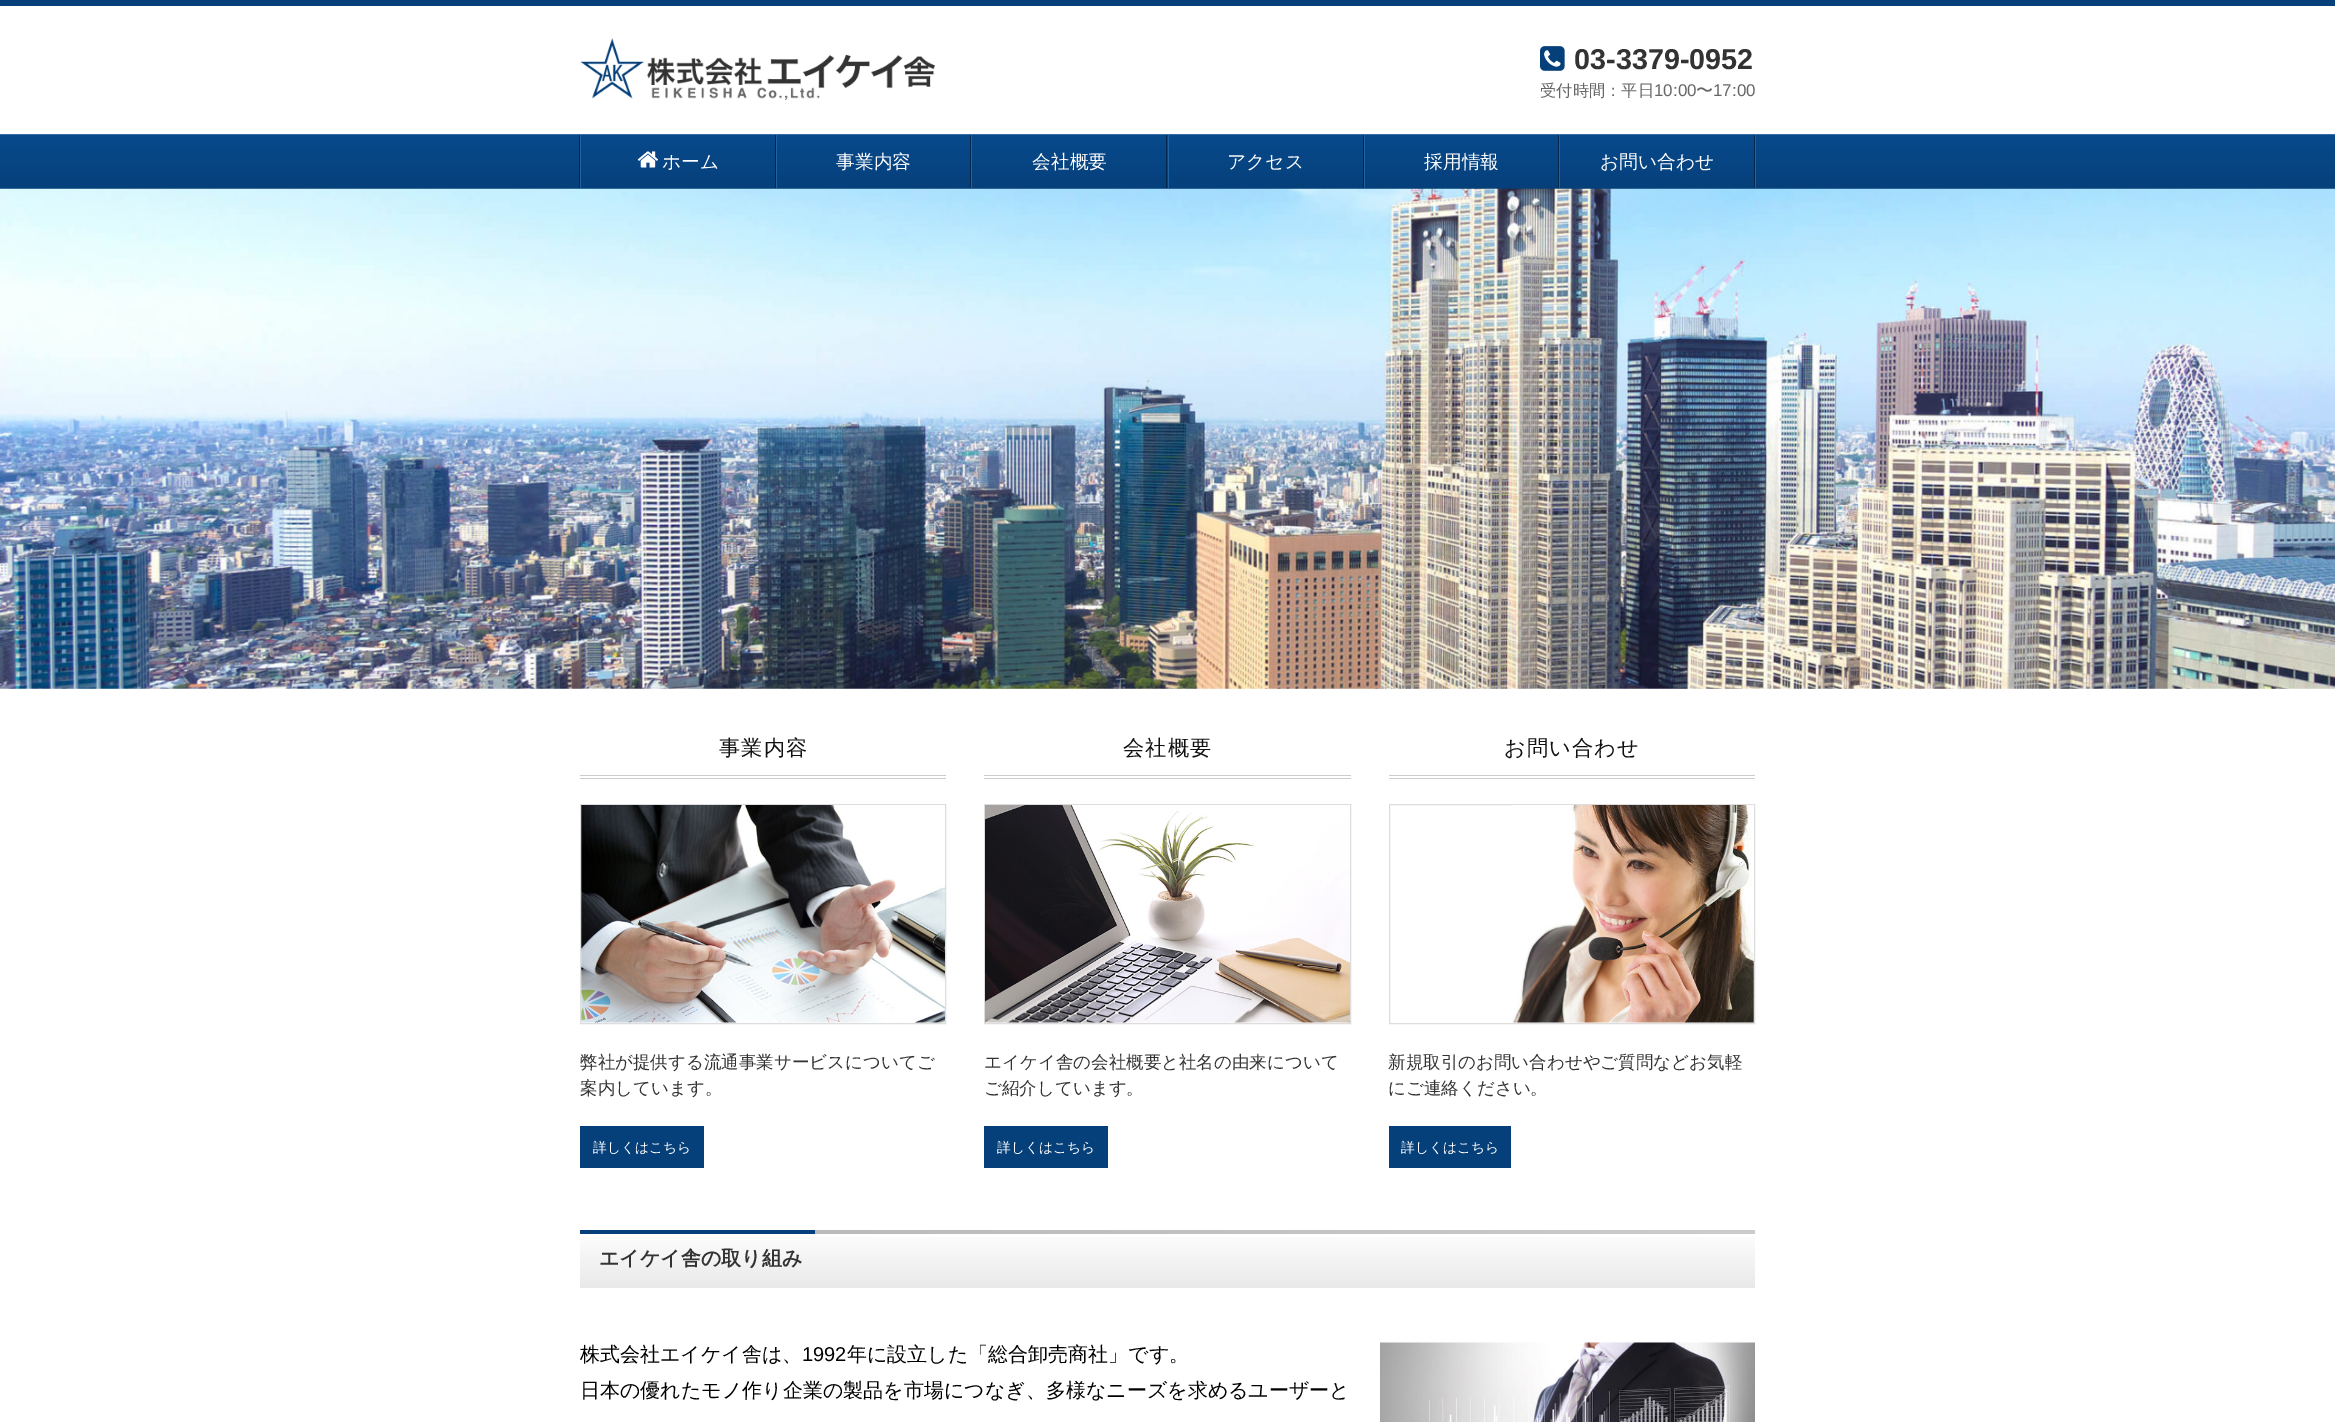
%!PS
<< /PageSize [2335 1422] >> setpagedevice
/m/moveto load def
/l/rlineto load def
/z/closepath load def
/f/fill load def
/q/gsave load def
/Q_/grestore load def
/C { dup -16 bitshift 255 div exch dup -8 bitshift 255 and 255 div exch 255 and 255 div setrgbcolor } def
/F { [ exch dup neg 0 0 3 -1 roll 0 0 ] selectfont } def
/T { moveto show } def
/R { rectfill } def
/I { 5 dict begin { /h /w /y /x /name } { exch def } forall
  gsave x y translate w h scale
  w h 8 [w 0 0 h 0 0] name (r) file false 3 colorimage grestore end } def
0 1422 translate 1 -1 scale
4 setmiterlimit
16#FFFFFF C
0 0 2335 1422 R
16#06407B C
0 0 2335 6 R
(1.rgb) 580 38 355 62 I
(2.rgb) 1540 46 25 25 I
/LiberationSans-Bold 28.75 F
16#333333 C
(03-3379-0952) 1574 69 T
/WenQuanYiZenHei-Medium 16.25 F
16#666666 C
(受付時間：平日) 1540 96 T
/LiberationSans-Regular 17 F
(10:00) 1654 96 T
/WenQuanYiZenHei-Medium 17 F
(〜) 1696 96 T
/LiberationSans-Regular 17 F
(17:00) 1713 96 T
q 0 135 m 2335 0 l 0 53 l -2335 0 l z clip newpath
<< /ShadingType 2 /ColorSpace /DeviceRGB /Coords [1168 135 1168 188] /Extend [true true] /Function << /FunctionType 2 /Domain [0 1] /C0 [.031 .29 .549] /C1 [.024 .251 .482] /N 1 >> >> shfill Q_
16#366FA6 C
0 134 2335 1 R
16#063E73 C
0 188 2335 1 R
16#02274D C
579 135 m 0 53 l 196 0 l -195 0 l 0 -53 l z f
775 135 1 53 R
16#2162A3 C
580 135 1 53 R
(3.rgb) 637 151 21 17 I
/WenQuanYiZenHei-Medium 18.75 F
16#FFFFFF C
(ホーム) 662 168 T
16#02274D C
970 135 1 53 R
16#2162A3 C
776 135 1 53 R
16#FFFFFF C
(事業内容) 836 168 T
16#02274D C
1166 135 1 53 R
16#2162A3 C
971 135 1 53 R
16#FFFFFF C
(会社概要) 1032 168 T
16#02274D C
1363 135 1 53 R
16#2162A3 C
1168 135 1 53 R
16#FFFFFF C
(アクセス) 1227 168 T
16#02274D C
1558 135 1 53 R
16#2162A3 C
1364 135 1 53 R
16#FFFFFF C
(採用情報) 1424 168 T
16#2162A3 C
1560 188 m 196 0 l 0 -53 l -1 0 l 0 53 l z f
16#02274D C
1754 135 1 53 R
16#2162A3 C
1559 135 1 53 R
16#FFFFFF C
(お問い合わせ) 1600 168 T
(4.rgb) 0 188 2335 501 I
16#CCCCCC C
580 775 366 1 R
580 778 366 1 R
/WenQuanYiZenHei-Medium 21.25 F
16#111111 C
719 755 m 1 0 (事業内容) ashow
16#DDDDDD C
580.5 804.5 365 219 rectstroke
(5.rgb) 581 805 364 218 I
/WenQuanYiZenHei-Medium 17.5 F
16#333333 C
(弊社が提供する流通事業サービスについてご) 580 1068 T
(案内しています。) 580 1094 T
16#06407B C
580 1126 124 42 R
/WenQuanYiZenHei-Medium 13.75 F
16#FFFFFF C
(詳しくはこちら) 593 1152 T
16#CCCCCC C
984 775 367 1 R
984 778 367 1 R
/WenQuanYiZenHei-Medium 21.25 F
16#111111 C
1123 755 m 1 0 (会社概要) ashow
16#DDDDDD C
984.5 804.5 366 219 rectstroke
(6.rgb) 985 805 365 218 I
/WenQuanYiZenHei-Medium 17.5 F
16#333333 C
(エイケイ舎の会社概要と社名の由来について) 984 1068 T
(ご紹介しています。) 984 1094 T
16#06407B C
984 1126 124 42 R
/WenQuanYiZenHei-Medium 13.75 F
16#FFFFFF C
(詳しくはこちら) 997 1152 T
16#CCCCCC C
1389 775 366 1 R
1389 778 366 1 R
/WenQuanYiZenHei-Medium 21.25 F
16#111111 C
1504 755 m 1 0 (お問い合わせ) ashow
16#DDDDDD C
1389.5 804.5 365 219 rectstroke
(7.rgb) 1512 805 242 218 I
/WenQuanYiZenHei-Medium 17.5 F
16#333333 C
(新規取引のお問い合わせやご質問などお気軽) 1388 1068 T
(にご連絡ください。) 1388 1094 T
16#06407B C
1389 1126 122 42 R
/WenQuanYiZenHei-Medium 13.75 F
16#FFFFFF C
(詳しくはこちら) 1401 1152 T
16#06407B C
580 1230 235 4 R
q 815 1230 m 940 0 l 0 4 l -940 0 l z clip newpath
<< /ShadingType 2 /ColorSpace /DeviceRGB /Coords [815 1232 1755 1232] /Extend [true true] /Function << /FunctionType 2 /Domain [0 1] /C0 [.733 .733 .733] /C1 [.8 .8 .8] /N 1 >> >> shfill Q_
q 580 1237 m 1175 0 l 0 51 l -1175 0 l z clip newpath
<< /ShadingType 2 /ColorSpace /DeviceRGB /Coords [1168 1230 1168 1288] /Extend [true true] /Function << /FunctionType 2 /Domain [0 1] /C0 [1 1 1] /C1 [.914 .914 .914] /N 1 >> >> shfill Q_
/WenQuanYiZenHei-Bold 20 F
16#333333 C
(エイケイ舎の取り組み) 599 1265 T
/WenQuanYiZenHei-Medium 20 F
16#000000 C
(株式会社エイケイ舎は、) 580 1361 T
/LiberationSans-Regular 20 F
(1992) 802 1361 T
/WenQuanYiZenHei-Medium 20 F
(年に設立した「総合卸売商社」です。) 847 1361 T
(日本の優れたモノ作り企業の製品を市場につなぎ、多様なニーズを求めるユーザーと) 580 1397 T
(8.rgb) 1380 1342 375 80 I
showpage
